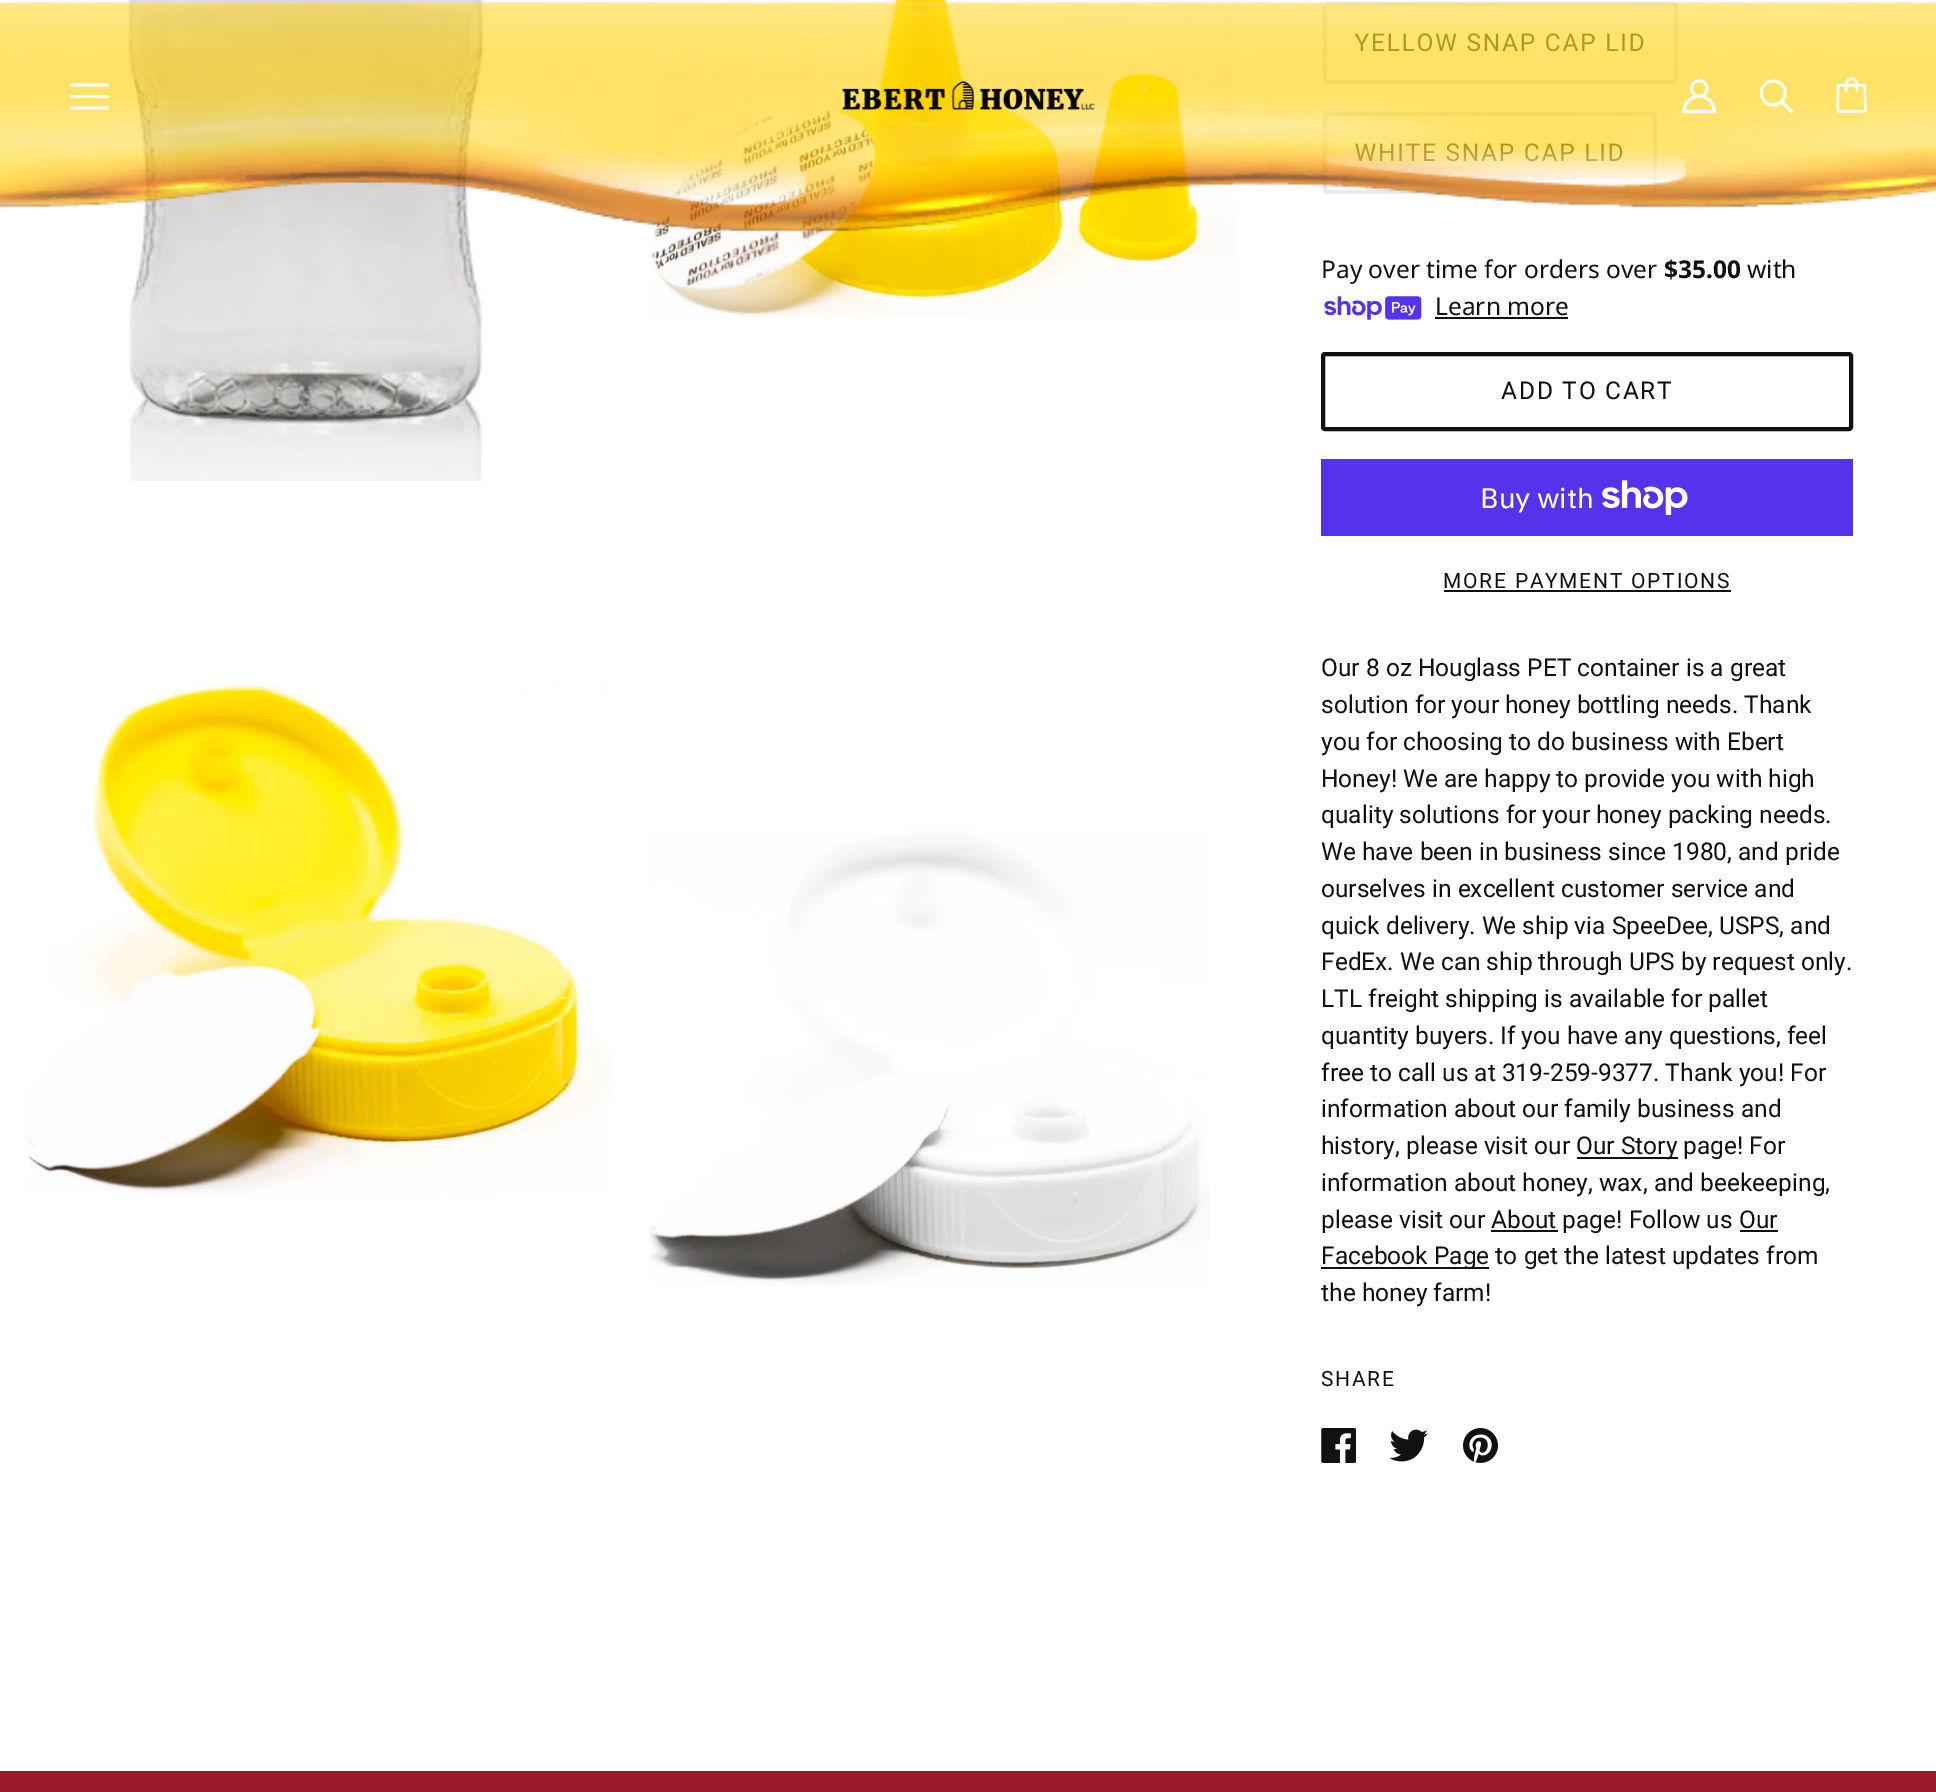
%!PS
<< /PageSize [1936 1792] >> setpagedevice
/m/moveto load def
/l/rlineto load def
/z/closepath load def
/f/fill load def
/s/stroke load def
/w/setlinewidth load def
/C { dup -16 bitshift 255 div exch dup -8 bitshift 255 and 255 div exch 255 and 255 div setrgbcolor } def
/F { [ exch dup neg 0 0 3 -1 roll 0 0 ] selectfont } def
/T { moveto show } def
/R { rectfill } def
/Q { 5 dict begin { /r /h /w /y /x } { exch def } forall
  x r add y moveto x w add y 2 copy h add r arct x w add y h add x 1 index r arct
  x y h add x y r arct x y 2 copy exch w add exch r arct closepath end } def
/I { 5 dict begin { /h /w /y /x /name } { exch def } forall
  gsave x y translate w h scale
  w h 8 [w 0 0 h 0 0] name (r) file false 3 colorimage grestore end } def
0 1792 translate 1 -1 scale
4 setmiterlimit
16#FFFFFF C
0 0 1936 1792 R
(6.rgb) 127 0 359 481 I
(7.rgb) 651 0 586 318 I
16#EAEAEA C
4 w
1325 4 351 78 2 Q s
/Roboto-Regular 24.5 F
16#414141 C
1355 51 m 1.75 0 (YELLOW SNAP CAP LID) ashow
16#EAEAEA C
1325 114 330 78 2 Q s
16#414141 C
1355 161 m 1.75 0 (WHITE SNAP CAP LID) ashow
(1.rgb) 0 1 1936 231 I
16#FFFFFF C
70 86.5 m 0 -3 l 38.5 0 l 0 3 l z 70 98 m 0 -3 l 38.5 0 l 0 3 l z 70 109.5 m 0 -3 l 38.5 0 l 0 3 l z f
(2.rgb) 842 80 253 30 I
(3.rgb) 1682 79 35 35 I
(4.rgb) 1759 79 35 35 I
(5.rgb) 1836 77 31 36 I
(8.rgb) 23 682 589 514 I
(9.rgb) 649 831 561 455 I
/NotoSans-Regular 24.5 F
16#111111 C
(Pay over time for orders over) 1321 278 T
/NotoSans-Bold 24.5 F
($35.00) 1664 278 T
/NotoSans-Regular 24.5 F
(with) 1747 278 T
(10.rgb) 1324 296 98 24 I
(Learn more) 1435 315 T
1435 317 133 2 R
1323 354 528 75 2 Q s
/Roboto-Regular 24.5 F
1501 399 m 1.75 0 (ADD TO CART) ashow
16#5433EB C
1321 459 532 77 R
/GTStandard-Regular 28 F
16#FFFFFF C
(Buy with) 1480 508 T
(11.rgb) 1602 480 86 35 I
/Roboto-Regular 21 F
16#111111 C
1443 588 m 1.75 0 (MORE PAYMENT OPTIONS) ashow
1444 590 287 2 R
/Roboto-Regular 24.5 F
(Our 8 oz Houglass PET container is a great) 1321 676 T
(solution for your honey bottling needs. Thank) 1321 713 T
(you for choosing to do business with Ebert) 1321 750 T
(Honey! We are happy to provide you with high) 1321 787 T
(quality solutions for your honey packing needs.) 1321 823 T
(We have been in business since 1980, and pride) 1321 860 T
(ourselves in excellent customer service and) 1321 897 T
(quick delivery. We ship via SpeeDee, USPS, and) 1321 934 T
(FedEx. We can ship through UPS by request only.) 1321 970 T
(LTL freight shipping is available for pallet) 1321 1007 T
(quantity buyers. If you have any questions, feel) 1321 1044 T
(free to call us at 319-259-9377. Thank you! For) 1321 1081 T
(information about our family business and) 1321 1117 T
(history, please visit our) 1321 1154 T
1577 1157 101 2 R
(Our Story page! For) 1576 1154 T
(information about honey, wax, and beekeeping,) 1321 1191 T
(please visit our About page! Follow us Our) 1321 1228 T
1491 1230 67 2 R
1321 1267 168 2 R
(Facebook Page to get the latest updates from) 1321 1264 T
1740 1230 38 2 R
(the honey farm!) 1321 1301 T
/Roboto-Regular 21 F
1321 1386 m 1.75 0 (SHARE) ashow
(12.rgb) 1321 1428 35 35 I
(13.rgb) 1390 1429 38 33 I
(14.rgb) 1463 1428 35 35 I
16#991B29 C
0 1771 1936 21 R
showpage
